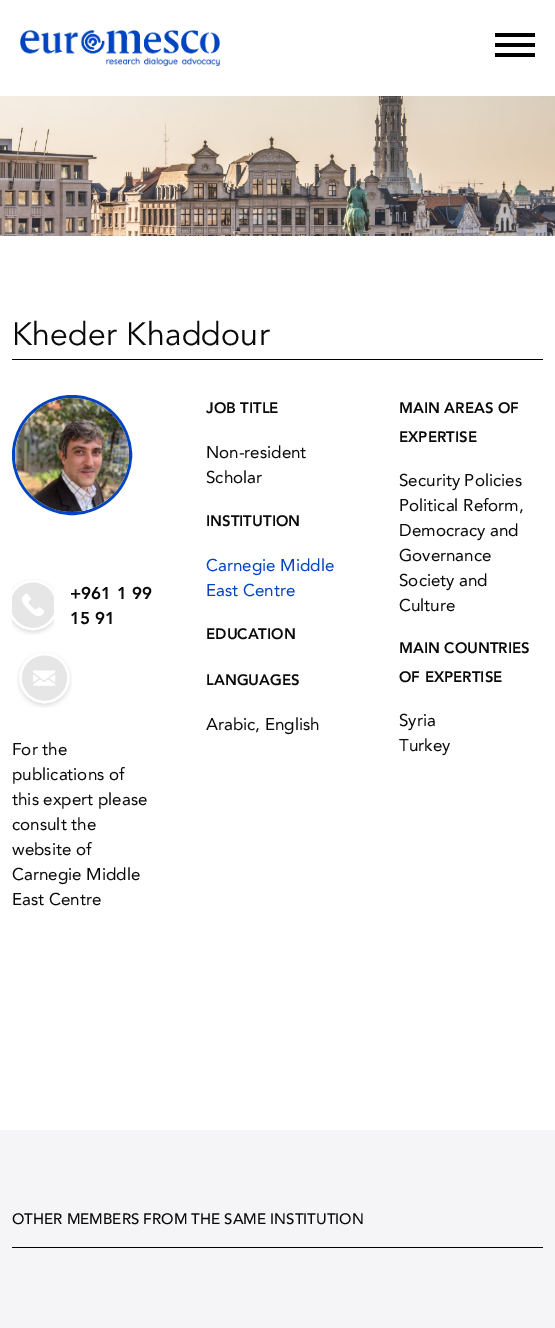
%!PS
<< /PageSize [555 1328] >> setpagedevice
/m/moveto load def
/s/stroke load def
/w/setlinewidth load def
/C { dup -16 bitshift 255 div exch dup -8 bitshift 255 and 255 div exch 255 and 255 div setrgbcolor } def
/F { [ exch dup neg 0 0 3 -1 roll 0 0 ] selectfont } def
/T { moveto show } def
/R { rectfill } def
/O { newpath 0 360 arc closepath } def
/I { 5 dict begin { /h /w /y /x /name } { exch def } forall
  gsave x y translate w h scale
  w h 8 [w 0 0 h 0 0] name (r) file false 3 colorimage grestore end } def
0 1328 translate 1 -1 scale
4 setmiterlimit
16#FFFFFF C
0 0 555 1328 R
(1.rgb) 20 30 200 36 I
16#000000 C
495 33 40 4 R
495 43 40 4 R
495 53 40 4 R
(2.rgb) 0 96 555 140 I
12 359 531 1 R
/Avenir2-Regular 32 F
16#0A0A0A C
12 345 m .25 0 (Kheder Khaddour) ashow
16#0044C0 C
3 w
72 455 58.5 O s
(3.rgb) 15 398 114 114 I
(4.rgb) 12 579 42 56 I
/Avenir-Black 17 F
16#0A0A0A C
(+961 1 99) 70 599 T
(15 91) 70 624 T
(5.rgb) 17 652 55 56 I
/Avenir-Regular 17 F
(For the) 12 755 T
(publications of) 12 780 T
(this expert please) 12 805 T
(consult the) 12 830 T
(website of) 12 855 T
(Carnegie Middle) 12 880 T
(East Centre) 12 905 T
/Avenir-Black 15 F
(JOB TITLE) 206 413 T
/Avenir-Regular 17 F
(Non-resident) 206 458 T
(Scholar) 206 483 T
/Avenir-Black 15 F
(INSTITUTION) 206 526 T
/Avenir-Regular 17 F
16#0044C0 C
(Carnegie Middle) 206 571 T
(East Centre) 206 596 T
/Avenir-Black 15 F
16#0A0A0A C
(EDUCATION) 206 639 T
(LANGUAGES) 206 685 T
/Avenir-Regular 17 F
(Arabic, English) 206 730 T
/Avenir-Black 15 F
(MAIN AREAS OF) 399 413 T
(EXPERTISE) 399 442 T
/Avenir-Regular 17 F
(Security Policies) 399 486 T
(Political Reform,) 399 511 T
(Democracy and) 399 536 T
(Governance) 399 561 T
(Society and) 399 586 T
(Culture) 399 611 T
/Avenir-Black 15 F
(MAIN COUNTRIES) 399 653 T
(OF EXPERTISE) 399 682 T
/Avenir-Regular 17 F
(Syria) 399 726 T
(Turkey) 399 751 T
16#F5F5F7 C
0 1130 555 198 R
16#000000 C
12 1247 531 1 R
/Avenir-Medium 15 F
16#0A0A0A C
(OTHER MEMBERS FROM THE SAME INSTITUTION) 12 1224 T
showpage
